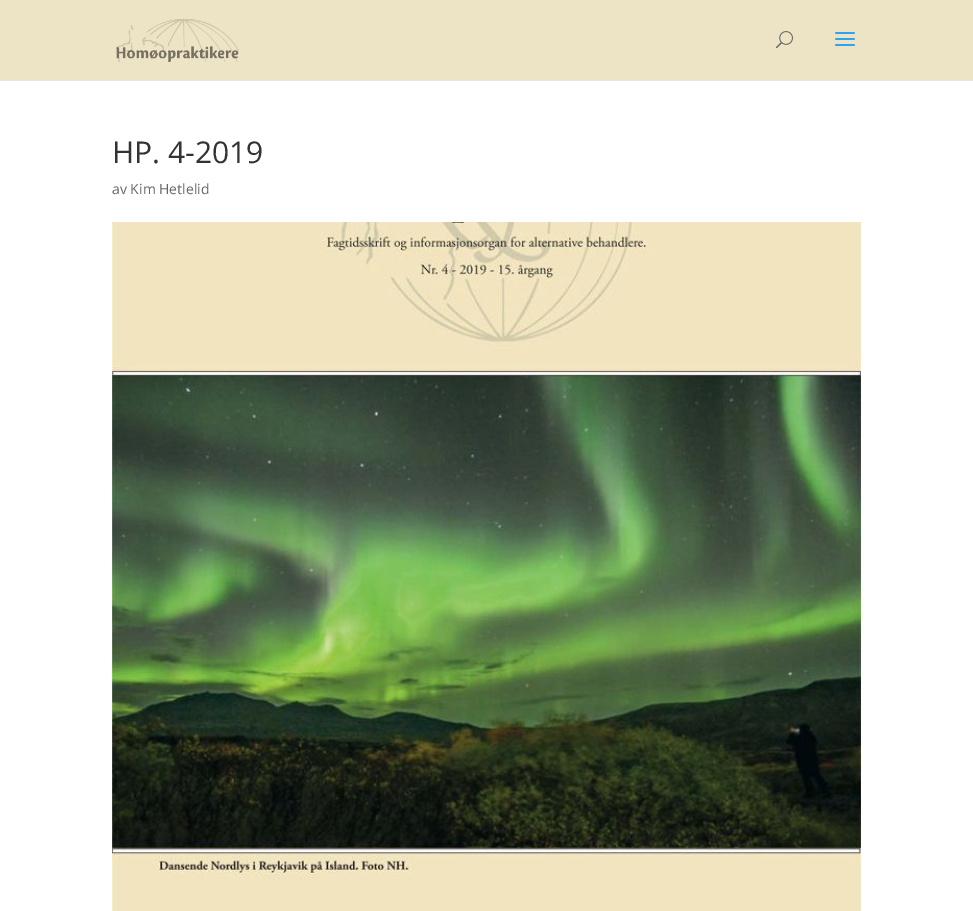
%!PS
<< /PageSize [973 911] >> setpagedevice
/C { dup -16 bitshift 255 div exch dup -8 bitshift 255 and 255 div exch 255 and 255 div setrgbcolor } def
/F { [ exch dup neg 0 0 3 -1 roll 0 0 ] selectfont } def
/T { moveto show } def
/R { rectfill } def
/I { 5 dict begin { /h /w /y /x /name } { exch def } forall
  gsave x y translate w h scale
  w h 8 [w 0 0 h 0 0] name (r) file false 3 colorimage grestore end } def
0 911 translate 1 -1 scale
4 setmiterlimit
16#FFFFFF C
0 0 973 911 R
16#E6E6E6 C
0 80 973 1 R
16#EDE3C5 C
0 0 973 80 R
(1.rgb) 116 19 123 43 I
(2.rgb) 776 31 17 18 I
(3.rgb) 835 32 20 14 I
/OpenSans-Regular 30 F
16#333333 C
(HP. 4-2019) 112 163 T
/OpenSans-Regular 14 F
16#666666 C
(av Kim Hetlelid) 112 194 T
(4.rgb) 112 222 749 689 I
showpage
